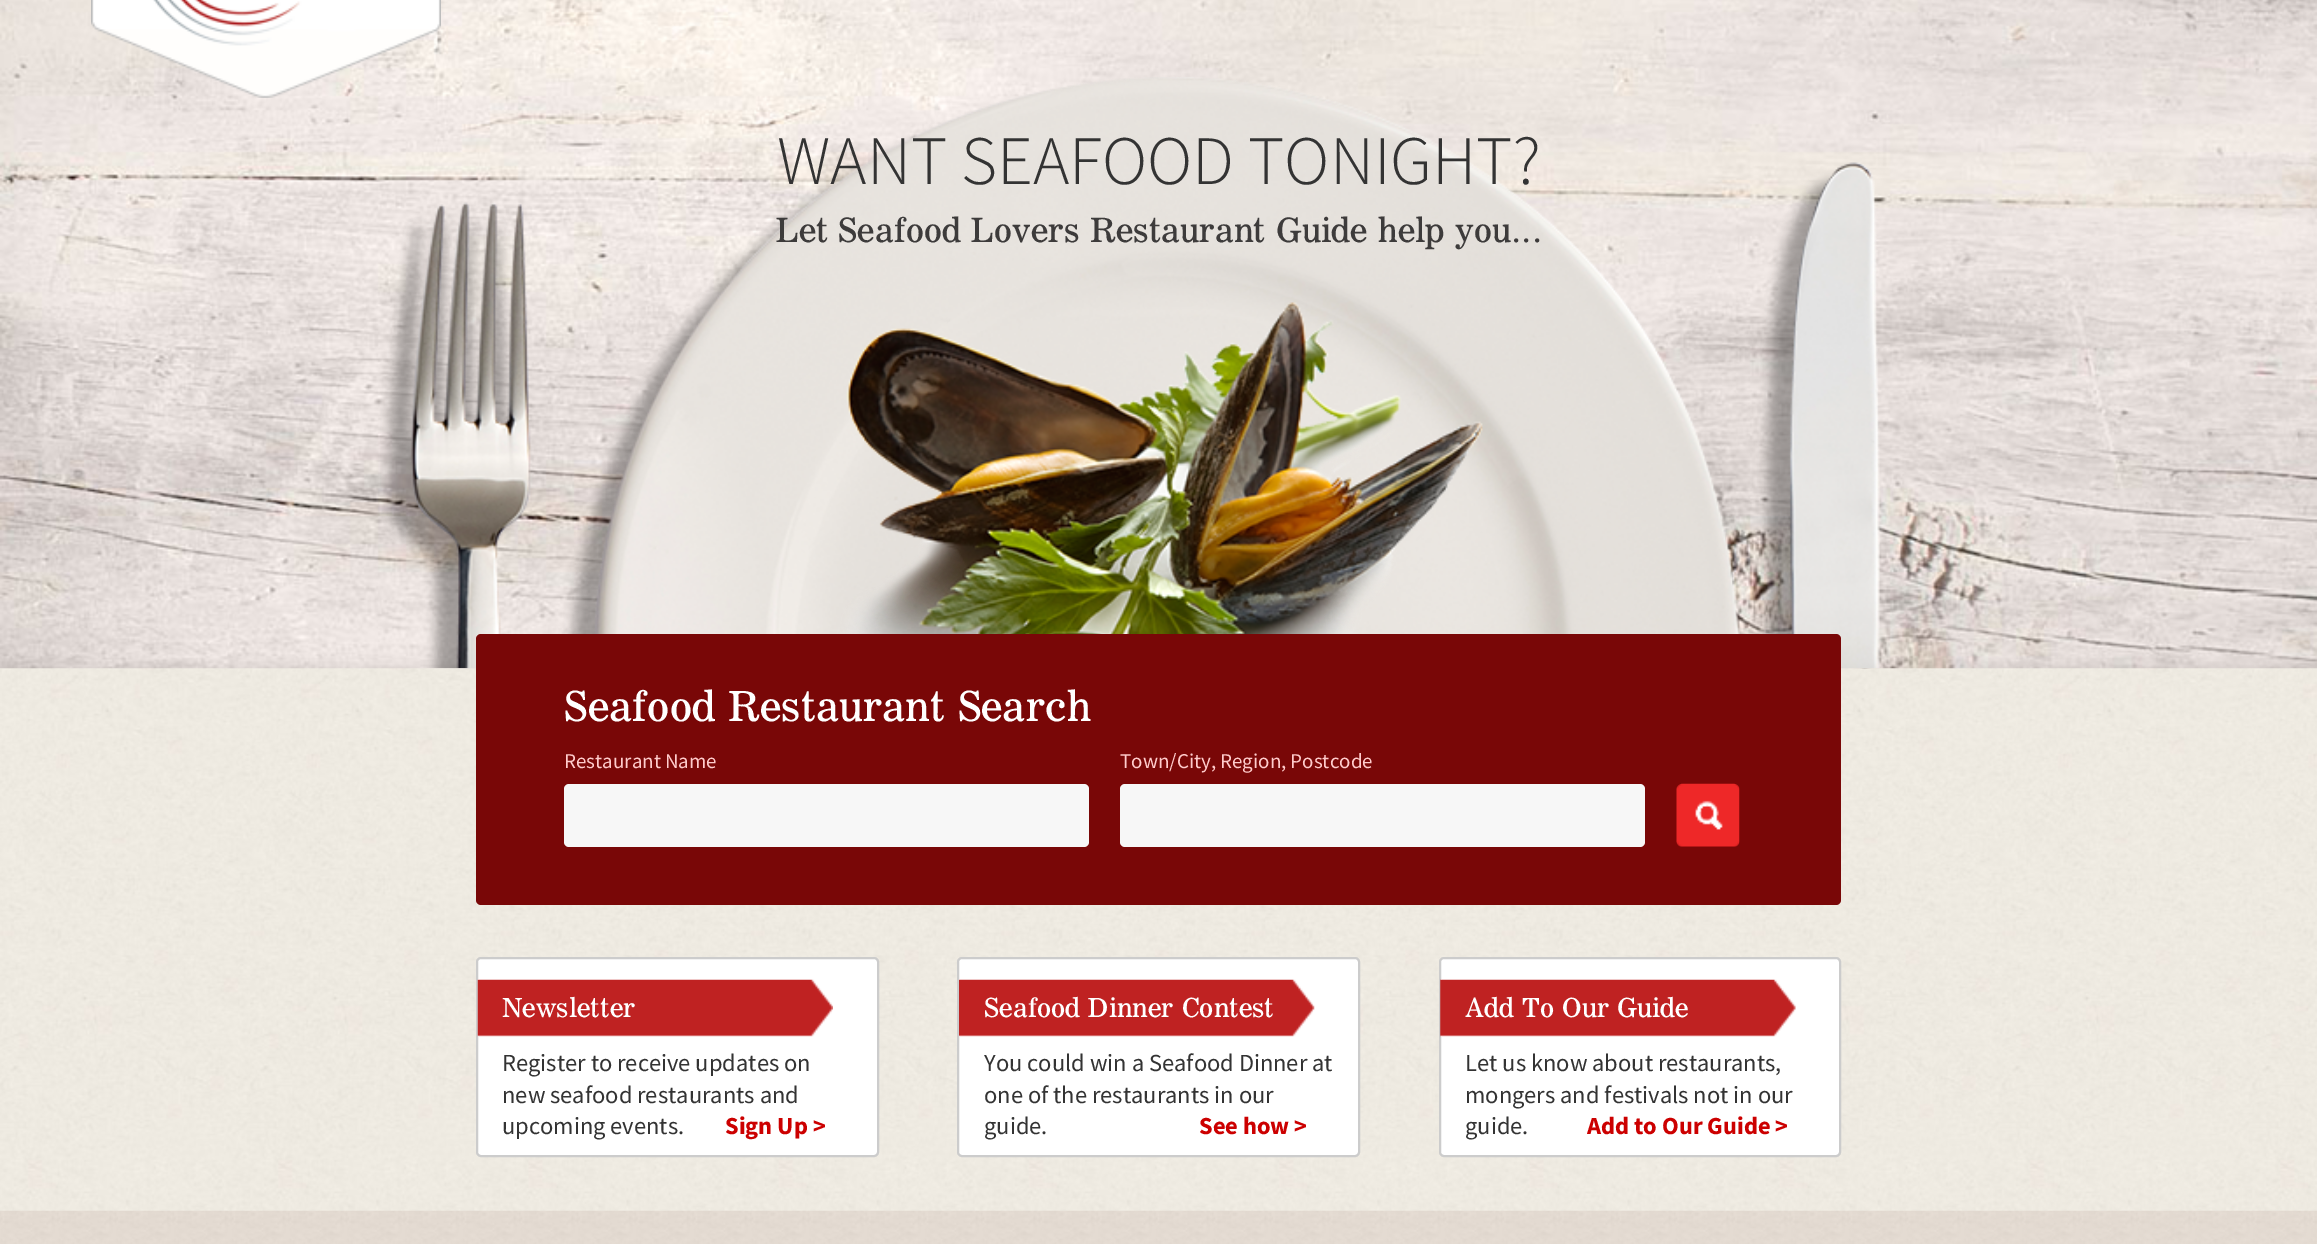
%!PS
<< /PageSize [2317 1244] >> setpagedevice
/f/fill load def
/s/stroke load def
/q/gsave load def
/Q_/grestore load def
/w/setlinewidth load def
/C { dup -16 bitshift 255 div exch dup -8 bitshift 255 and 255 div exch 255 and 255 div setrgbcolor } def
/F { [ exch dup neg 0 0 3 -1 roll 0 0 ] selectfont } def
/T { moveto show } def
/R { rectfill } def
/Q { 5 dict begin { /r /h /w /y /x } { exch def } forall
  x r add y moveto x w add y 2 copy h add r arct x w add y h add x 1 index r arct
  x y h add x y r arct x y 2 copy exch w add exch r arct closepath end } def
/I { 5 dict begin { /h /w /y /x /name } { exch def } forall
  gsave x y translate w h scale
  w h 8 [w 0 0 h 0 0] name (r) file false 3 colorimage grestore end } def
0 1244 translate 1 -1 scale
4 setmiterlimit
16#FFFFFF C
0 0 2317 1244 R
(1.rgb) 0 668 2317 543 I
(2.rgb) 0 0 2317 669 I
(4.rgb) 380 77 1500 592 I
(3.rgb) 91 0 350 98 I
/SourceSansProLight-Light 69.25 F
16#333333 C
(WANT SEAFOOD TONIGHT?) 777 184 T
/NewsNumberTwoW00-Regular 31.2 F
16#3D3B3B C
(Let Seafood Lovers Restaurant Guide help you...) 776 242 T
(5.rgb) 837 302 646 332 I
16#790707 C
476 634 1365 271 5 Q f
/NewsNumberTwoW00-Regular 38.5 F
16#FFFFFF C
(Seafood Restaurant Search) 564 721 T
/SourceSansPro-Regular 21 F
16#FFCCCC C
(Restaurant Name) 564 768 T
16#F7F7F7 C
564 784 525 63 5 Q f
16#FFCCCC C
(Town/City, Region, Postcode) 1120 768 T
16#F7F7F7 C
1120 784 525 63 5 Q f
(6.rgb) 1676 783 64 64 I
16#FFFFFF C
477 958 401 198 4 Q q f Q_
16#CCCCCC C
2 w
s
(7.rgb) 477 979 356 58 I
/NewsNumberTwoW00-Regular 24.5 F
16#FFFFFF C
(Newsletter) 502 1017 T
/SourceSansPro-Regular 24.5 F
16#333333 C
(Register to receive updates on) 502 1071 T
(new seafood restaurants and) 502 1103 T
(upcoming events.) 502 1134 T
/SourceSansPro-Bold 24.5 F
16#CC0000 C
(Sign Up >) 725 1134 T
16#FFFFFF C
958 958 401 198 4 Q q f Q_
16#CCCCCC C
s
(8.rgb) 959 979 356 58 I
/NewsNumberTwoW00-Regular 24.5 F
16#FFFFFF C
(Seafood Dinner Contest) 984 1017 T
/SourceSansPro-Regular 24.5 F
16#333333 C
(You could win a Seafood Dinner at) 984 1071 T
(one of the restaurants in our) 984 1103 T
(guide.) 984 1134 T
/SourceSansPro-Bold 24.5 F
16#CC0000 C
(See how >) 1199 1134 T
16#FFFFFF C
1440 958 400 198 4 Q q f Q_
16#CCCCCC C
s
(9.rgb) 1440 979 356 58 I
/NewsNumberTwoW00-Regular 24.5 F
16#FFFFFF C
(Add To Our Guide) 1465 1017 T
/SourceSansPro-Regular 24.5 F
16#333333 C
(Let us know about restaurants,) 1465 1071 T
(mongers and festivals not in our) 1465 1103 T
(guide.) 1465 1134 T
/SourceSansPro-Bold 24.5 F
16#CC0000 C
(Add to Our Guide >) 1587 1134 T
(10.rgb) 0 1210 2317 34 I
showpage
